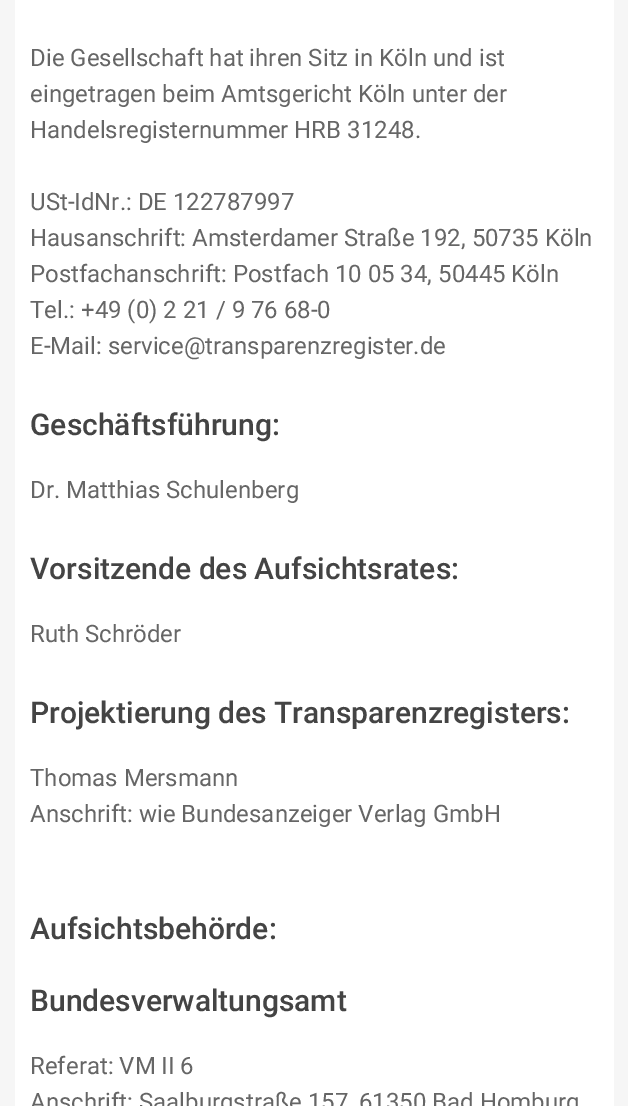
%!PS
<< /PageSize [628 1106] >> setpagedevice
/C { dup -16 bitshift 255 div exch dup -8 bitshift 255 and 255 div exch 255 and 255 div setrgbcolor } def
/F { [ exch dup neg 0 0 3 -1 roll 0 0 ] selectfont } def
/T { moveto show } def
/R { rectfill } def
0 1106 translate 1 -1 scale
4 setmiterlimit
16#F6F6F6 C
0 0 628 1106 R
16#FFFFFF C
15 0 599 1106 R
/Roboto-Regular 24 F
16#666666 C
(Die Gesellschaft hat ihren Sitz in Köln und ist) 30 66 T
(eingetragen beim Amtsgericht Köln unter der) 30 102 T
(Handelsregisternummer HRB 31248.) 30 138 T
(USt-IdNr.: DE 122787997) 30 210 T
(Hausanschrift: Amsterdamer Straße 192, 50735 Köln) 30 246 T
(Postfachanschrift: Postfach 10 05 34, 50445 Köln) 30 282 T
(Tel.: +49 \(0\) 2 21 / 9 76 68-0) 30 318 T
(E-Mail: service@transparenzregister.de) 30 354 T
/Roboto-Medium 30 F
16#444444 C
(Geschäftsführung:) 30 435 T
/Roboto-Regular 24 F
16#666666 C
(Dr. Matthias Schulenberg) 30 498 T
/Roboto-Medium 30 F
16#444444 C
(Vorsitzende des Aufsichtsrates:) 30 579 T
/Roboto-Regular 24 F
16#666666 C
(Ruth Schröder) 30 642 T
/Roboto-Medium 30 F
16#444444 C
(Projektierung des Transparenzregisters:) 30 723 T
/Roboto-Regular 24 F
16#666666 C
(Thomas Mersmann) 30 786 T
(Anschrift: wie Bundesanzeiger Verlag GmbH) 30 822 T
/Roboto-Medium 30 F
16#444444 C
(Aufsichtsbehörde:) 30 939 T
(Bundesverwaltungsamt) 30 1011 T
/Roboto-Regular 24 F
16#666666 C
(Referat: VM II 6) 30 1074 T
(Anschrift: Saalburgstraße 157, 61350 Bad Homburg) 30 1110 T
showpage
